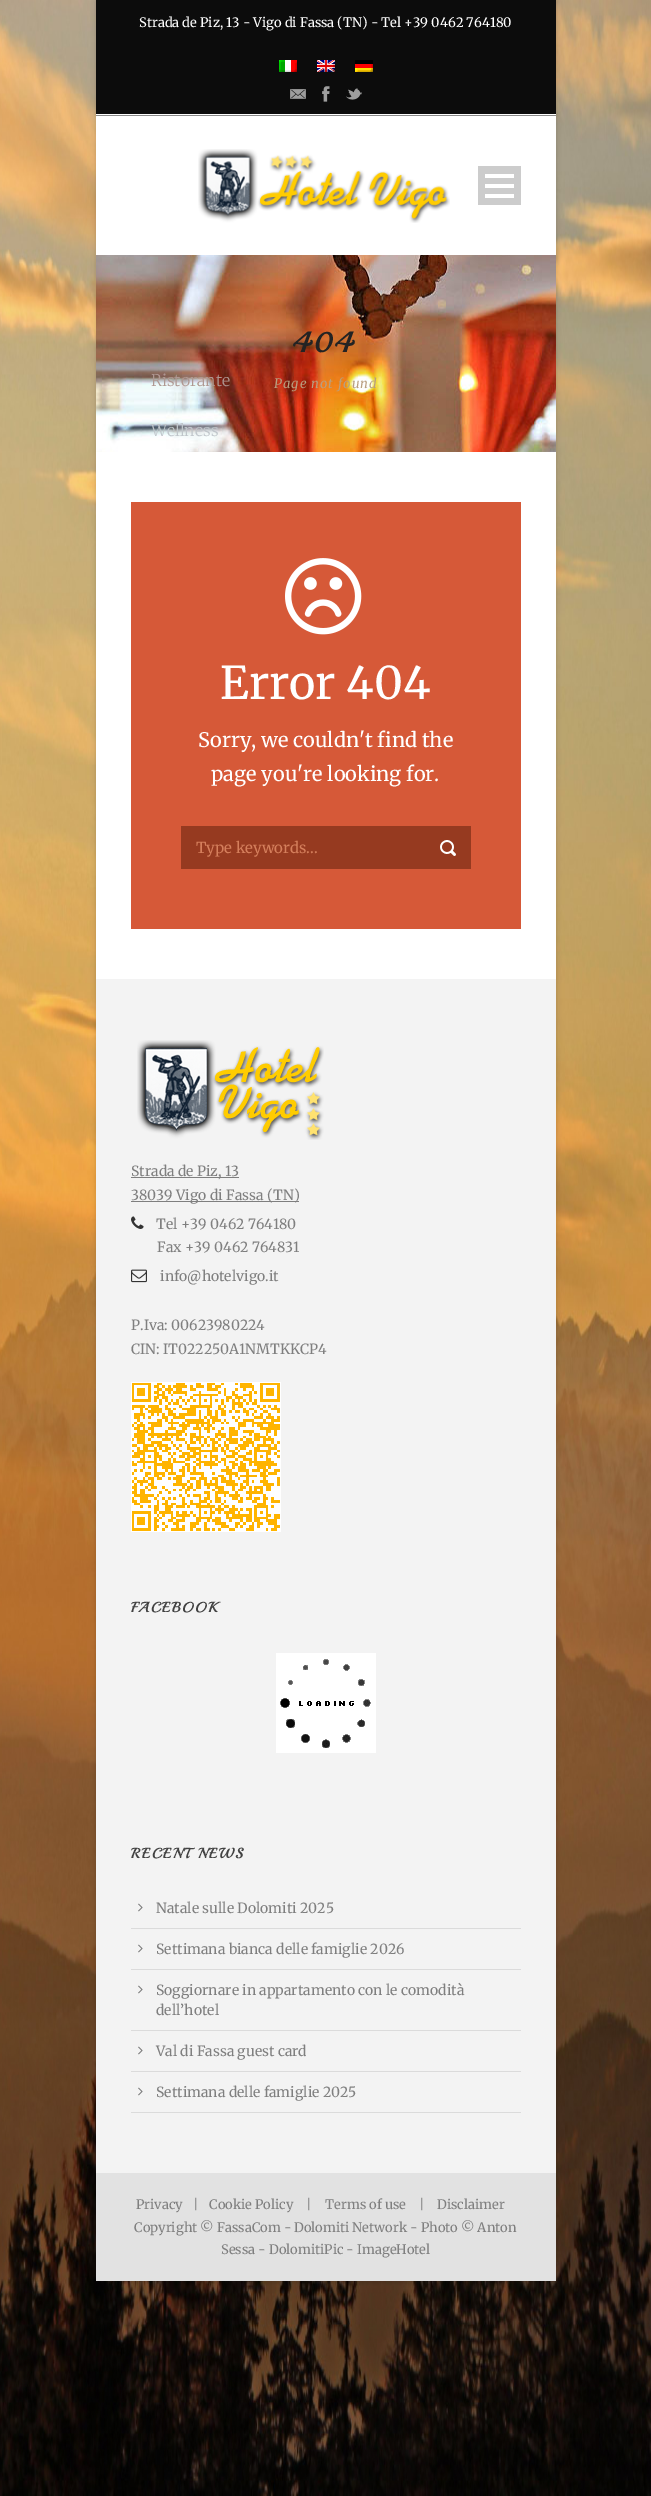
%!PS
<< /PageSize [651 2496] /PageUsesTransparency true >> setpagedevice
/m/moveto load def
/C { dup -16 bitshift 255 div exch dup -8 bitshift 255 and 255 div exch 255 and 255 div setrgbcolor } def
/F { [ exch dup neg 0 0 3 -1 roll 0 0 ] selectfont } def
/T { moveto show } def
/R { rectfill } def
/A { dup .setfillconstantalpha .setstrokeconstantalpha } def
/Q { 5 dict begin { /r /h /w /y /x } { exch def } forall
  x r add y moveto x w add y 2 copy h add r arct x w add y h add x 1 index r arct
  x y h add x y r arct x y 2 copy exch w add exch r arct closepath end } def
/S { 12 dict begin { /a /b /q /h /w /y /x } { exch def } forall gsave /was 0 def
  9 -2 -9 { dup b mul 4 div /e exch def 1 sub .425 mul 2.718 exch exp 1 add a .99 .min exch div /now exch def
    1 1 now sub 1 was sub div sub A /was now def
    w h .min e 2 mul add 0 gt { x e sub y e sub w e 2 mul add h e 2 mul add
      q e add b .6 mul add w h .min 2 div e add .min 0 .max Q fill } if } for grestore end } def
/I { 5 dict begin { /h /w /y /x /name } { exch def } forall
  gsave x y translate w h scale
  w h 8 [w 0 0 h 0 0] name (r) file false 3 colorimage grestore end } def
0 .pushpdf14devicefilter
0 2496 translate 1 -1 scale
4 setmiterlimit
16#FFFFFF C
0 0 651 2496 R
(1.rgb) 0 0 651 2496 I
16#000000 C
96 1 460 2281 0 2.5 .15 S
16#FFFFFF C
96 114 460 865 R
16#0C0C0C C
96 0 460 114 R
/Merriweather-Regular 13 F
16#FFFFFF C
(Strada de Piz, 13 - Vigo di Fassa \(TN\) - Tel +39 0462 764180) 139 27 T
(2.rgb) 279 60 18 12 I
(3.rgb) 317 60 18 12 I
(4.rgb) 355 60 18 12 I
(5.rgb) 290 89 16 10 I
(6.rgb) 322 86 8 16 I
(7.rgb) 346 88 16 12 I
16#898989 C
96 115 460 1 R
(8.rgb) 198 149 252 74 I
16#CCCCCC C
478 166 43 39 R
16#FFFFFF C
485 194 29 4 R
485 184 29 4 R
485 174 29 4 R
(9.rgb) 96 255 460 197 I
/Merriweather-Light 16 F
16#AF9892 C
(Ristorante) 151 386 T
16#BFC5CA C
(Wellness) 151 436 T
/Playball-Bold 28 F
16#232323 C
293 352 m 3 0 (404) ashow
/Merriweather-Italic 13 F
16#B89F80 C
274 388 m 1 0 (Page not found) ashow
16#D65938 C
131 502 390 427 R
(10.rgb) 285 558 77 77 I
/Merriweather-Regular 45 F
16#FFFFFF C
(Error 404) 220 699 T
/Merriweather-Regular 20 F
(Sorry, we couldn't find the) 198 747 T
(page you're looking for.) 211 781 T
16#963A20 C
181 826 290 43 R
/Merriweather-Regular 15 F
16#D57F5C C
(Type keywords...) 196 853 T
(11.rgb) 440 840 16 16 I
16#F3F3F3 C
96 979 460 1194 R
(12.rgb) 137 1040 187 100 I
16#7F7F7F C
131 1177 108 1 R
/Merriweather-Regular 14 F
(Strada de Piz, 13) 131 1176 T
131 1201 168 1 R
(38039 Vigo di Fassa \(TN\)) 131 1200 T
(13.rgb) 131 1216 13 13 I
(Tel +39 0462 764180) 156 1229 T
(Fax +39 0462 764831) 157 1252 T
(14.rgb) 131 1269 16 14 I
(info@hotelvigo.it) 160 1281 T
(P.Iva: 00623980224) 131 1330 T
(CIN: IT022250A1NMTKKCP4) 131 1354 T
(15.rgb) 131 1382 150 150 I
/Playball-Bold 14 F
16#424242 C
131 1612 m 2 0 (FACEBOOK) ashow
(16.rgb) 276 1653 100 100 I
131 1858 m 2 0 (RECENT NEWS) ashow
16#DBDBDB C
131 1928 390 1 R
(17.rgb) 138 1903 5 9 I
/Merriweather-Regular 14 F
16#7F7F7F C
(Natale sulle Dolomiti 2025) 156 1913 T
16#DBDBDB C
131 1969 390 1 R
(17.rgb) 138 1944 5 9 I
16#7F7F7F C
(Settimana bianca delle famiglie 2026) 156 1954 T
16#DBDBDB C
131 2030 390 1 R
(17.rgb) 138 1985 5 9 I
16#7F7F7F C
(Soggiornare in appartamento con le comodità) 156 1995 T
(dell’hotel) 156 2015 T
16#DBDBDB C
131 2071 390 1 R
(17.rgb) 138 2046 5 9 I
16#7F7F7F C
(Val di Fassa guest card) 156 2056 T
16#DBDBDB C
131 2112 390 1 R
(17.rgb) 138 2087 5 9 I
16#7F7F7F C
(Settimana delle famiglie 2025) 156 2097 T
16#E2E2E2 C
96 2173 460 108 R
/Merriweather-Regular 13 F
16#7F7F7F C
(Privacy) 136 2209 T
(|) 193 2209 T
(Cookie Policy) 209 2209 T
(|) 306 2209 T
(Terms of use) 325 2209 T
(|) 419 2209 T
(Disclaimer) 437 2209 T
(Copyright © FassaCom) 134 2232 T
(-) 284 2232 T
(Dolomiti Network) 294 2232 T
(- Photo © Anton) 410 2232 T
(Sessa -) 221 2254 T
(DolomitiPic) 269 2254 T
(-) 346 2254 T
(ImageHotel) 357 2254 T
.poppdf14devicefilter showpage
